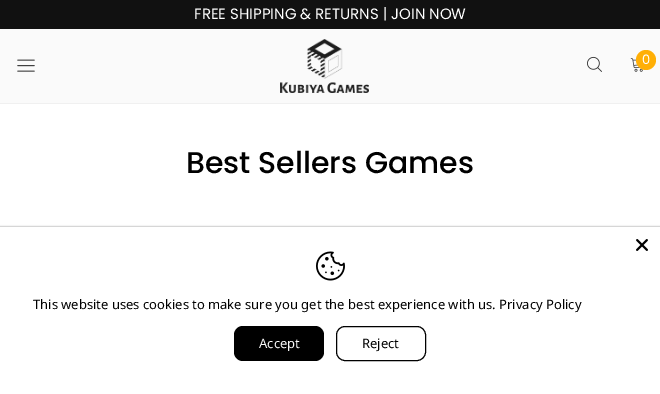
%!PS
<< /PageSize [660 394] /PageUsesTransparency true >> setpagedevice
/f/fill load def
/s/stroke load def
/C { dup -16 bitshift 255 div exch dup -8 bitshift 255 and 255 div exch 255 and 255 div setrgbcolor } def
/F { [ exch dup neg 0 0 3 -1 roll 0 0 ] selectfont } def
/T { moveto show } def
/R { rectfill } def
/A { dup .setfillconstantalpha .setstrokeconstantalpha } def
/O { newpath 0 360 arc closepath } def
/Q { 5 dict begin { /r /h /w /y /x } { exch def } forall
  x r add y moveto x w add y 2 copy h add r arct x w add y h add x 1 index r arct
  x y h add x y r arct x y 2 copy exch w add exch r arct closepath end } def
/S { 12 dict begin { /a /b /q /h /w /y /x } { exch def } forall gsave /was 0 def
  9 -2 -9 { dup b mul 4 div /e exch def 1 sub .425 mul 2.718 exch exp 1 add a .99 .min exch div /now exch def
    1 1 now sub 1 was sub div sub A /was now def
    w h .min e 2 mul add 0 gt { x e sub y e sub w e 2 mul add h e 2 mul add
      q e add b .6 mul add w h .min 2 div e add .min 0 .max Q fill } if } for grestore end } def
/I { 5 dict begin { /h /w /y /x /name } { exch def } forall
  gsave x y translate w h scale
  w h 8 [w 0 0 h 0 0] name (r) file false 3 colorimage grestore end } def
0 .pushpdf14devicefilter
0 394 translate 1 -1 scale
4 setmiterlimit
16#FFFFFF C
0 0 660 394 R
16#111111 C
0 0 660 29 R
/Poppins-Regular 15 F
16#FFFFFF C
(FREE SHIPPING & RETURNS | JOIN NOW) 194 19 T
16#FAFAFA C
0 29 660 74 R
16#F0F0F0 C
0 103 660 1 R
(1.rgb) 17 59 18 13 I
(2.rgb) 280 39 89 54 I
(3.rgb) 587 56 15 16 I
(4.rgb) 630 58 13 14 I
16#FFAF06 C
646 60 10 O f
/Poppins-Regular 13 F
16#FFFFFF C
(0) 642 64 T
/Poppins-Medium 30 F
16#000000 C
(Best Sellers Games) 186 173 T
0 227 660 167 0 1 .5 S
16#FFFFFF C
0 227 660 167 R
(5.rgb) 636 239 12 12 I
(6.rgb) 316 251 29 30 I
/NotoSans-Regular 13 F
16#000000 C
(This website uses cookies to make sure you get the best experience with us. Privacy Policy) 33 309 T
234 326 90 35 9 Q f
16#F8F8F8 C
(Accept) 259 348 T
16#000000 C
336.5 326.5 89 34 8.5 Q s
(Reject) 362 348 T
.poppdf14devicefilter showpage
